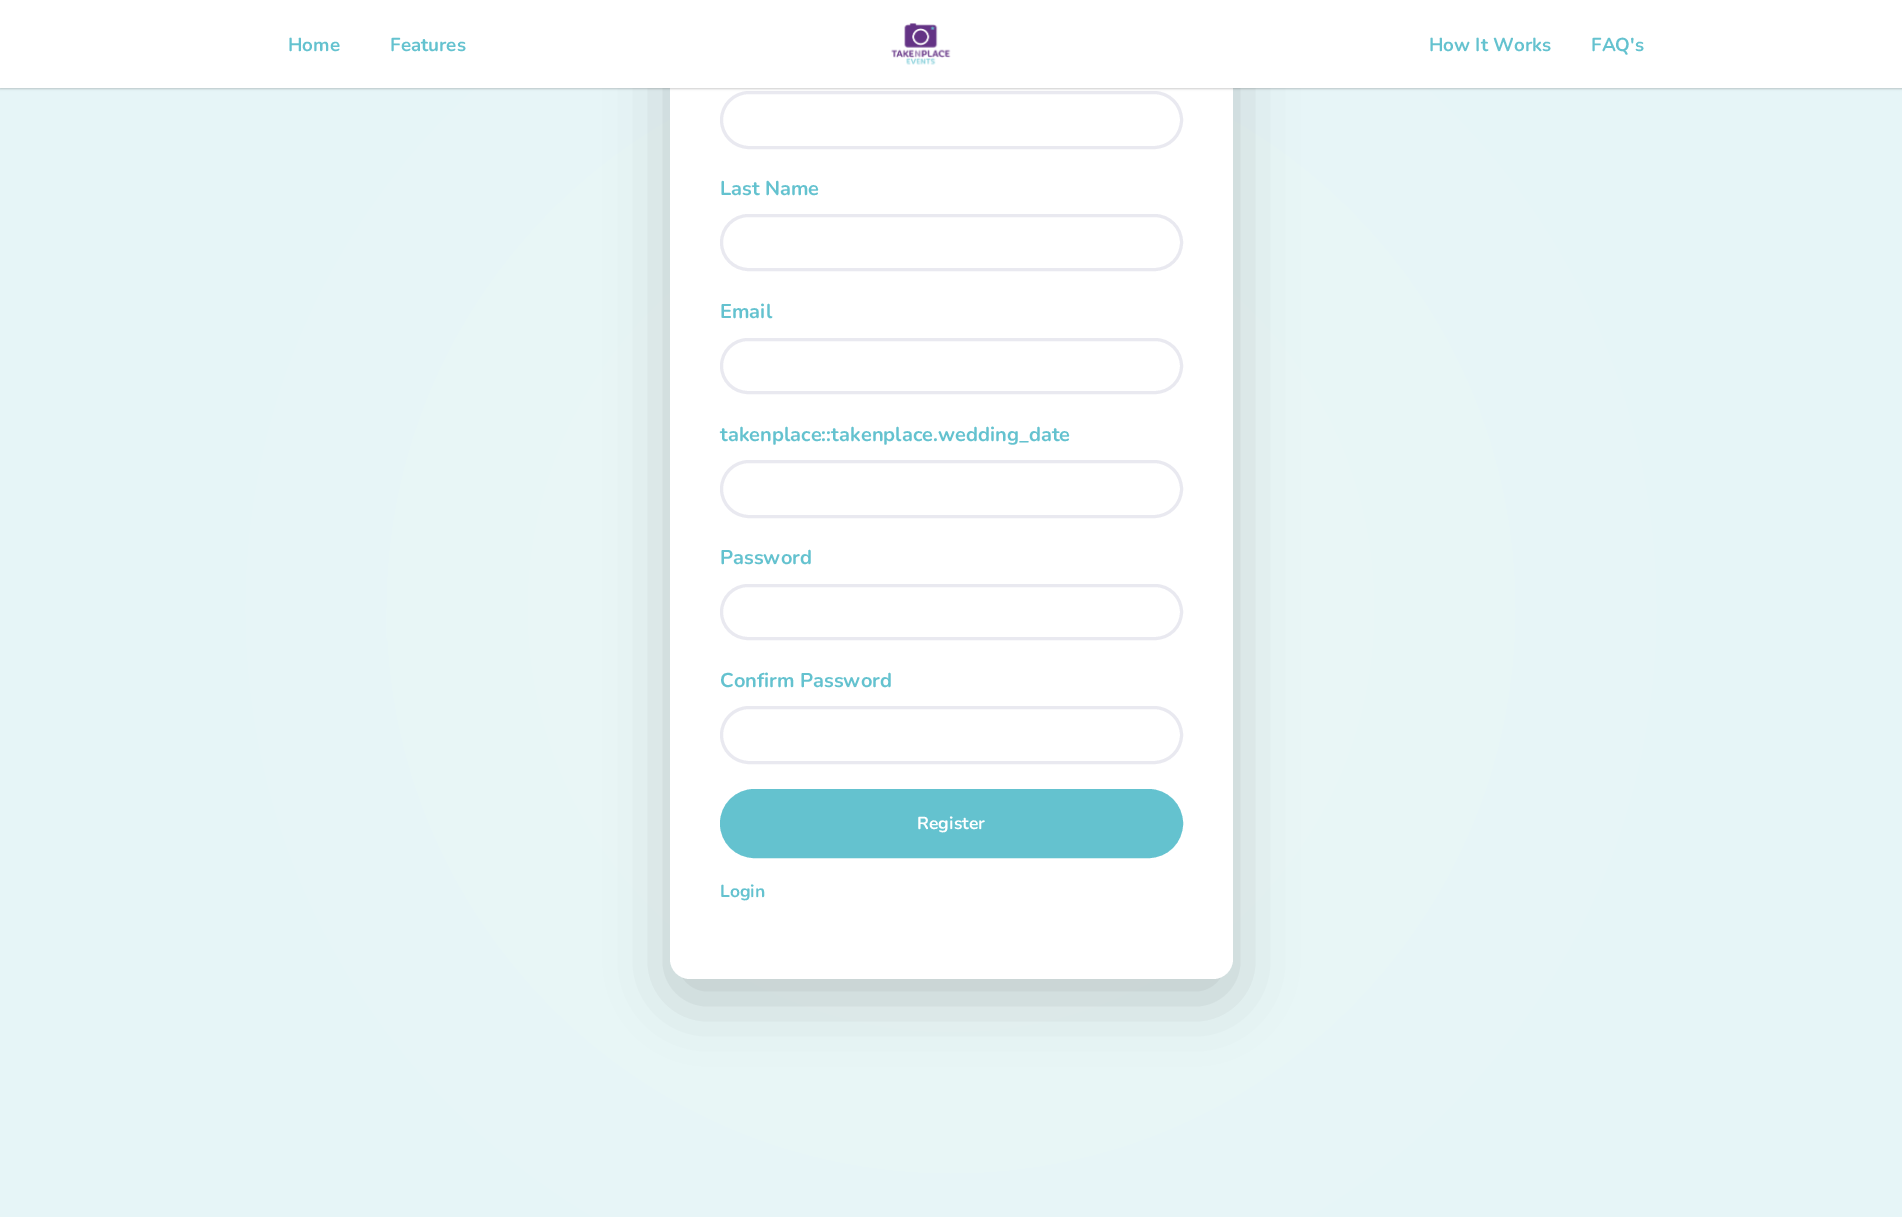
%!PS
<< /PageSize [1902 1217] /PageUsesTransparency true >> setpagedevice
/m/moveto load def
/l/rlineto load def
/z/closepath load def
/f/fill load def
/s/stroke load def
/q/gsave load def
/Q_/grestore load def
/w/setlinewidth load def
/C { dup -16 bitshift 255 div exch dup -8 bitshift 255 and 255 div exch 255 and 255 div setrgbcolor } def
/F { [ exch dup neg 0 0 3 -1 roll 0 0 ] selectfont } def
/T { moveto show } def
/R { rectfill } def
/A { dup .setfillconstantalpha .setstrokeconstantalpha } def
/Q { 5 dict begin { /r /h /w /y /x } { exch def } forall
  x r add y moveto x w add y 2 copy h add r arct x w add y h add x 1 index r arct
  x y h add x y r arct x y 2 copy exch w add exch r arct closepath end } def
/S { 12 dict begin { /a /b /q /h /w /y /x } { exch def } forall gsave /was 0 def
  9 -2 -9 { dup b mul 4 div /e exch def 1 sub .425 mul 2.718 exch exp 1 add a .99 .min exch div /now exch def
    1 1 now sub 1 was sub div sub A /was now def
    w h .min e 2 mul add 0 gt { x e sub y e sub w e 2 mul add h e 2 mul add
      q e add b .6 mul add w h .min 2 div e add .min 0 .max Q fill } if } for grestore end } def
/I { 5 dict begin { /h /w /y /x /name } { exch def } forall
  gsave x y translate w h scale
  w h 8 [w 0 0 h 0 0] name (r) file false 3 colorimage grestore end } def
0 .pushpdf14devicefilter
0 1217 translate 1 -1 scale
4 setmiterlimit
16#FFFFFF C
0 0 1902 1217 R
q 0 88 m 1902 0 l 0 1129 l -1902 0 l z clip newpath 951 609 translate 1129 1129 scale
<< /ShadingType 3 /ColorSpace /DeviceRGB /Coords [0 0 0 0 0 1] /Extend [true true] /Function << /FunctionType 3 /Domain [0 1] /Functions [<< /FunctionType 2 /Domain [0 1] /C0 [.925 .969 .965] /C1 [.902 .961 .969] /N 1 >> << /FunctionType 2 /Domain [0 1] /C0 [.902 .961 .969] /C1 [.902 .961 .969] /N 1 >>] /Bounds [.7] /Encode [0 1 0 1] >> >> shfill Q_
16#000000 C
670 -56 563 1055 20 30 .18 S
16#FFFFFF C
670 -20 563 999 20 Q f
16#E9E9F0 C
3 w
721.5 92.5 460 55 27.5 Q s
16#000000 C
0 1 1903 88 0 1 .2 S
16#FFFFFF C
0 0 1902 88 R
/Nunito-Bold 18.75 F
16#64C2CF C
(Home) 288 51 T
(Features) 390 51 T
(1.rgb) 891 23 60 42 I
(How It Works) 1429 51 T
(FAQ's) 1591 51 T
/Nunito-Bold 20 F
(Last Name) 720 195 T
16#E9E9F0 C
721.5 215.5 460 54 27 Q s
16#64C2CF C
(Email) 720 318 T
16#E9E9F0 C
721.5 339.5 460 53 26.5 Q s
16#64C2CF C
(takenplace::takenplace.wedding_date) 720 441 T
16#E9E9F0 C
721.5 461.5 460 55 27.5 Q s
16#64C2CF C
(Password) 720 564 T
16#E9E9F0 C
721.5 585.5 460 53 26.5 Q s
16#64C2CF C
(Confirm Password) 720 687 T
16#E9E9F0 C
721.5 707.5 460 55 27.5 Q s
16#64C2CF C
721.5 790.5 460 66 33 Q q f Q_
s
/Nunito-Bold 17.5 F
16#FFFFFF C
(Register) 917 829 T
16#64C2CF C
(Login) 720 897 T
.poppdf14devicefilter showpage
